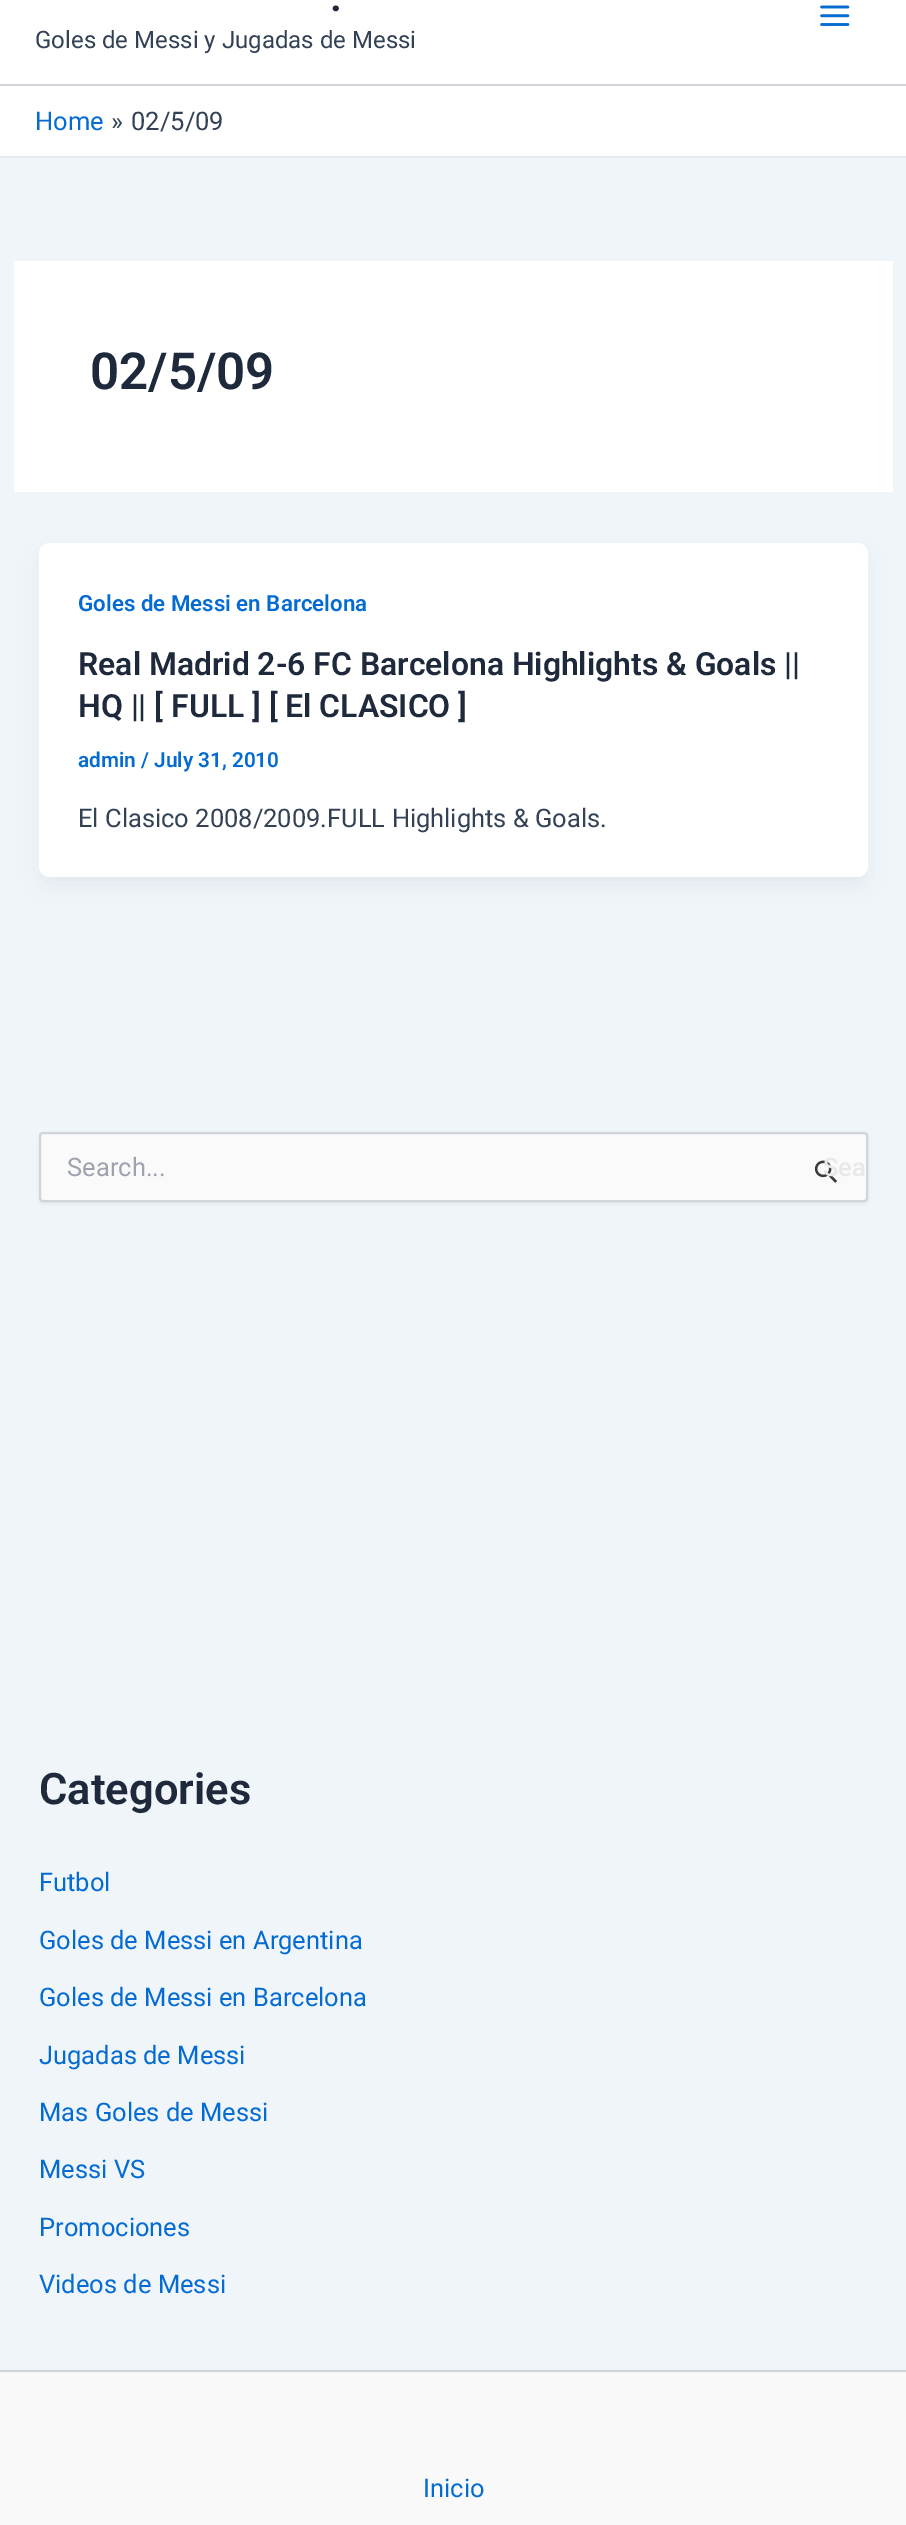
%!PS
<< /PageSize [906 2525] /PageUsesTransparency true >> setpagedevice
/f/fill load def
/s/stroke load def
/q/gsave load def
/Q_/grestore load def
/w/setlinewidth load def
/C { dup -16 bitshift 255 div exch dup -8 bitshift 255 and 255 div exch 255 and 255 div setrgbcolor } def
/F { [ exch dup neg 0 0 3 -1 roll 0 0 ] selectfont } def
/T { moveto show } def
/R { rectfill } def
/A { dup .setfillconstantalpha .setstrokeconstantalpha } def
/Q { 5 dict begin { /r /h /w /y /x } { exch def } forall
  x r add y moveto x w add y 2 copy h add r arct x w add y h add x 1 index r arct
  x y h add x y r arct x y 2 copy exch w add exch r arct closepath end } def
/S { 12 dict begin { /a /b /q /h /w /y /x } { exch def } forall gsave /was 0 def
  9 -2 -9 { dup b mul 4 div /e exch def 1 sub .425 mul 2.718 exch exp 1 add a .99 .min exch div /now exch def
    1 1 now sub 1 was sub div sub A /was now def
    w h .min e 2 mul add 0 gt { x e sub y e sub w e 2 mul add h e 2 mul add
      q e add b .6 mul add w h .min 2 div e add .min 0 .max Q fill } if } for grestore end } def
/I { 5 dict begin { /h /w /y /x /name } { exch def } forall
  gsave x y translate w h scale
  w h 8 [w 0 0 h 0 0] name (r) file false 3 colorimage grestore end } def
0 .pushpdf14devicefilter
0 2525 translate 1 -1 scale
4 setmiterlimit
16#F0F5FA C
0 0 906 2525 R
16#FFFFFF C
0 0 906 84 R
16#D1D5DB C
0 84 906 2 R
/Roboto-SemiBold 42 F
16#1E293B C
(.) 330 11 T
/Roboto-Regular 24 F
16#334155 C
(Goles de Messi y Jugadas de Messi) 35 48 T
(1.rgb) 820 5 30 21 I
16#FFFFFF C
0 86 906 70 R
16#EAEAEA C
0 156 906 2 R
/Roboto-Regular 25.5 F
16#046BD2 C
(Home) 35 130 T
16#334155 C
(») 111 130 T
(02/5/09) 131 130 T
16#FFFFFF C
14 261 879 231 R
/Roboto-SemiBold 51 F
16#1E293B C
(02/5/09) 90 389 T
16#101828 C
42 557 823 327 7 13 .05 S
16#FFFFFF C
39 543 829 334 11 Q f
/Roboto-SemiBold 22.3 F
16#046BD2 C
(Goles de Messi en Barcelona) 78 611 T
/Roboto-SemiBold 31.9 F
16#1E293B C
(Real Madrid 2-6 FC Barcelona Highlights & Goals ||) 78 675 T
(HQ || [ FULL ] [ El CLASICO ]) 78 717 T
/Roboto-SemiBold 20.75 F
16#046BD2 C
(admin / July 31, 2010) 78 767 T
/Roboto-Regular 25.5 F
16#334155 C
(El Clasico 2008/2009.FULL Highlights & Goals.) 78 827 T
16#000000 C
39 1134 829 70 4 2 .05 S
16#FAFAFA C
40 1133 827 68 3 Q q f Q_
16#D1D5DB C
2 w
s
16#9CA3AF C
(Search...) 67 1176 T
(2.rgb) 814 1160 23 23 I
/Roboto-Medium 25.5 F
16#E8E8E8 C
(Sea) 823 1176 T
/Roboto-SemiBold 43.5 F
16#1E293B C
(Categories) 39 1804 T
/Roboto-Regular 25.5 F
16#046BD2 C
(Futbol) 39 1891 T
(Goles de Messi en Argentina) 39 1949 T
(Goles de Messi en Barcelona) 39 2006 T
(Jugadas de Messi) 39 2064 T
(Mas Goles de Messi) 39 2121 T
(Messi VS) 39 2178 T
(Promociones) 39 2236 T
(Videos de Messi) 39 2293 T
16#F9F9F9 C
0 2372 906 153 R
16#D1D5DB C
0 2370 906 2 R
16#046BD2 C
(Inicio) 423 2497 T
.poppdf14devicefilter showpage
